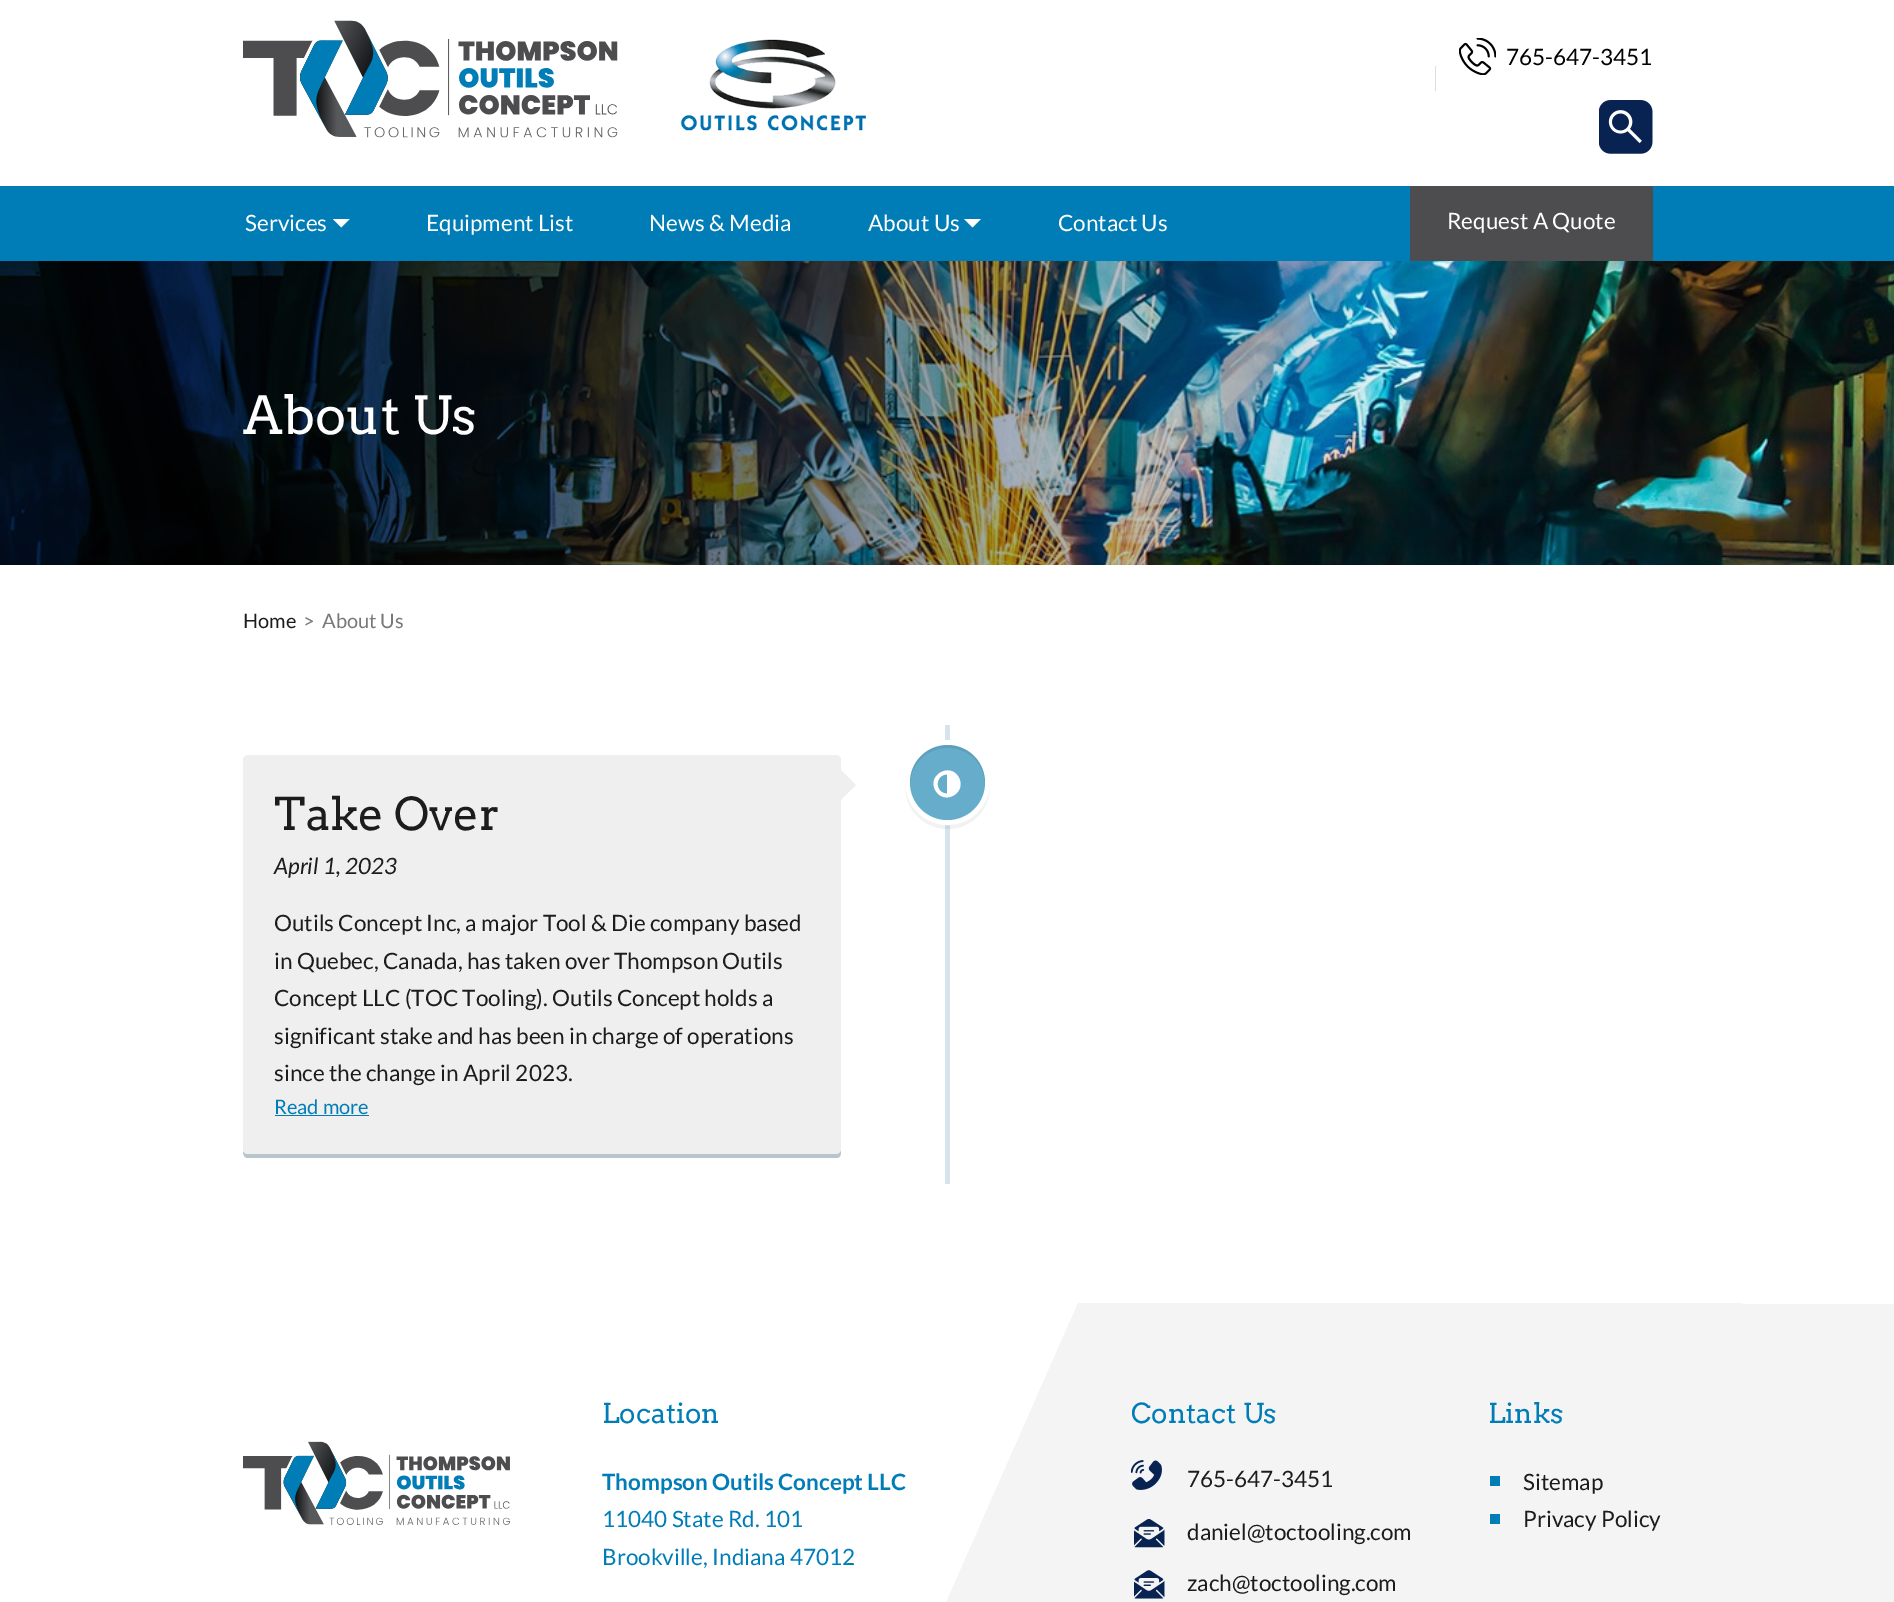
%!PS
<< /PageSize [1894 1602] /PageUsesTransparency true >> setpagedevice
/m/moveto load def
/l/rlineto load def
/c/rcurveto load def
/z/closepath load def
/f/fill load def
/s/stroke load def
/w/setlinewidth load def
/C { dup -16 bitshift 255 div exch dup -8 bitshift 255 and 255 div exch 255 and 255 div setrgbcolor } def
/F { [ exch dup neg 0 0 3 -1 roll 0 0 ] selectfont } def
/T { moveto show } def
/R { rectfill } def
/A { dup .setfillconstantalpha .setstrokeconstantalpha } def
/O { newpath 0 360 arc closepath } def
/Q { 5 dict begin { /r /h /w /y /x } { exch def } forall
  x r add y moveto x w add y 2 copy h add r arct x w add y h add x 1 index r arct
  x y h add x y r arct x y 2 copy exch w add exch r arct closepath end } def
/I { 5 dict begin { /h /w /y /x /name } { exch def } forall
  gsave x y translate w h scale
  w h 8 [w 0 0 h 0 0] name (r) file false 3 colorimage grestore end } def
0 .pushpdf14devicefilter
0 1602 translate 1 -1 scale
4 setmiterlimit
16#FFFFFF C
0 0 1894 1602 R
(1.rgb) 243 20 375 118 I
(2.rgb) 680 39 186 92 I
(3.rgb) 1459 38 37 37 I
/Lato-Regular 22.5 F
16#000000 C
(765-647-3451) 1506 65 T
16#E0DFDE C
1435 66 1 25 R
(4.rgb) 1599 100 54 54 I
16#007CB7 C
0 186 1894 75 R
16#FFFFFF C
(Services) 245 231 T
(5.rgb) 333 219 17 9 I
(Equipment List) 426 231 T
(News & Media) 649 231 T
(About Us) 868 231 T
(6.rgb) 964 219 17 9 I
(Contact Us) 1058 231 T
16#4D4D4F C
1410 186 243 75 R
16#FFFFFF C
(Request A Quote) 1447 229 T
(7.rgb) 0 261 1894 304 I
/Arvo-Regular 52.5 F
(About Us) 243 434 T
/Lato-Regular 20 F
16#1C1C1C C
(Home) 243 628 T
16#787878 C
(>) 303 628 T
(About Us) 322 628 T
16#D7E4ED C
945 725 5 459 R
0.05 A
16#000000 C
948 744 m -24 0 -43 19 -43 42 c 0 24 19 43 43 43 c 23 0 42 -19 42 -43 c 0 -23 -19 -42 -42 -42 c z 948 745 m -21 0 -38 17 -38 37 c 0 21 17 38 38 38 c 20 0 37 -17 37 -38 c 0 -20 -17 -37 -37 -37 c z eofill
1 A
16#FFFFFF C
5 w
947.5 782.5 40 O s
16#66ADCC C
947.5 782.5 37.5 O f
0.08 A
16#000000 C
948 748 m 20 0 36 15 37 36 c 0 -8 -2 -16 -6 -22 c -21 -31 -70 -16 -69 22 c 1 -21 17 -36 38 -36 c z f
1 A
16#FFFFFF C
947 793.5 m 0 -19 l -12.5 0 -12.5 19 0 19 c z 958.5 777 m 9 15.5 -14 29 -23 13.5 c -9 -15 14.5 -28.5 23 -13.5 c z f
16#B9C5CD C
243 1151 m 0 3 1 7 5 7 c 588 0 l 5 0 5 -4 5 -8 c -1 2 -3 4 -5 4 c -588 0 l -2 0 -4 -1 -5 -3 c z f
16#EFEFEF C
243 755 598 399 5 Q f
841 800 m 0 -30 l 15 15 l z f
/Arvo-Regular 45 F
16#1C1C1C C
(Take Over) 274 830 T
/Lato-Italic 22.5 F
(April 1, 2023) 274 874 T
/Lato-Regular 22.5 F
(Outils Concept Inc, a major Tool & Die company based) 274 931 T
(in Quebec, Canada, has taken over Thompson Outils) 274 969 T
(Concept LLC \(TOC Tooling\). Outils Concept holds a) 274 1006 T
(significant stake and has been in charge of operations) 274 1044 T
(since the change in April 2023.) 274 1081 T
/Lato-Regular 20 F
16#007CB7 C
(Read more) 274 1114 T
275 1115 94 1 R
(8.rgb) 243 1441 267 84 I
/Arvo-Regular 27.5 F
(Location) 602 1423 T
/Lato-Bold 22.5 F
(Thompson Outils Concept LLC) 602 1490 T
/Lato-Regular 22.5 F
(11040 State Rd. 101) 602 1527 T
(Brookville, Indiana 47012) 602 1565 T
16#F4F4F4 C
1612 1304 282 298 R
1078 1303 m 665 0 l -181 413 l -666 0 l z f
/Arvo-Regular 27.5 F
16#007CB7 C
(Contact Us) 1131 1423 T
(9.rgb) 1131 1460 31 30 I
/Lato-Regular 22.5 F
16#1C1C1C C
(765-647-3451) 1187 1487 T
(10.rgb) 1134 1519 31 29 I
(daniel@toctooling.com) 1187 1540 T
(11.rgb) 1134 1570 31 29 I
(zach@toctooling.com) 1187 1591 T
/Arvo-Regular 27.5 F
16#007CB7 C
(Links) 1488 1423 T
1490 1476 10 10 R
/Lato-Regular 22.5 F
16#1C1C1C C
(Sitemap) 1523 1490 T
16#007CB7 C
1490 1514 10 10 R
16#1C1C1C C
(Privacy Policy) 1523 1527 T
.poppdf14devicefilter showpage
